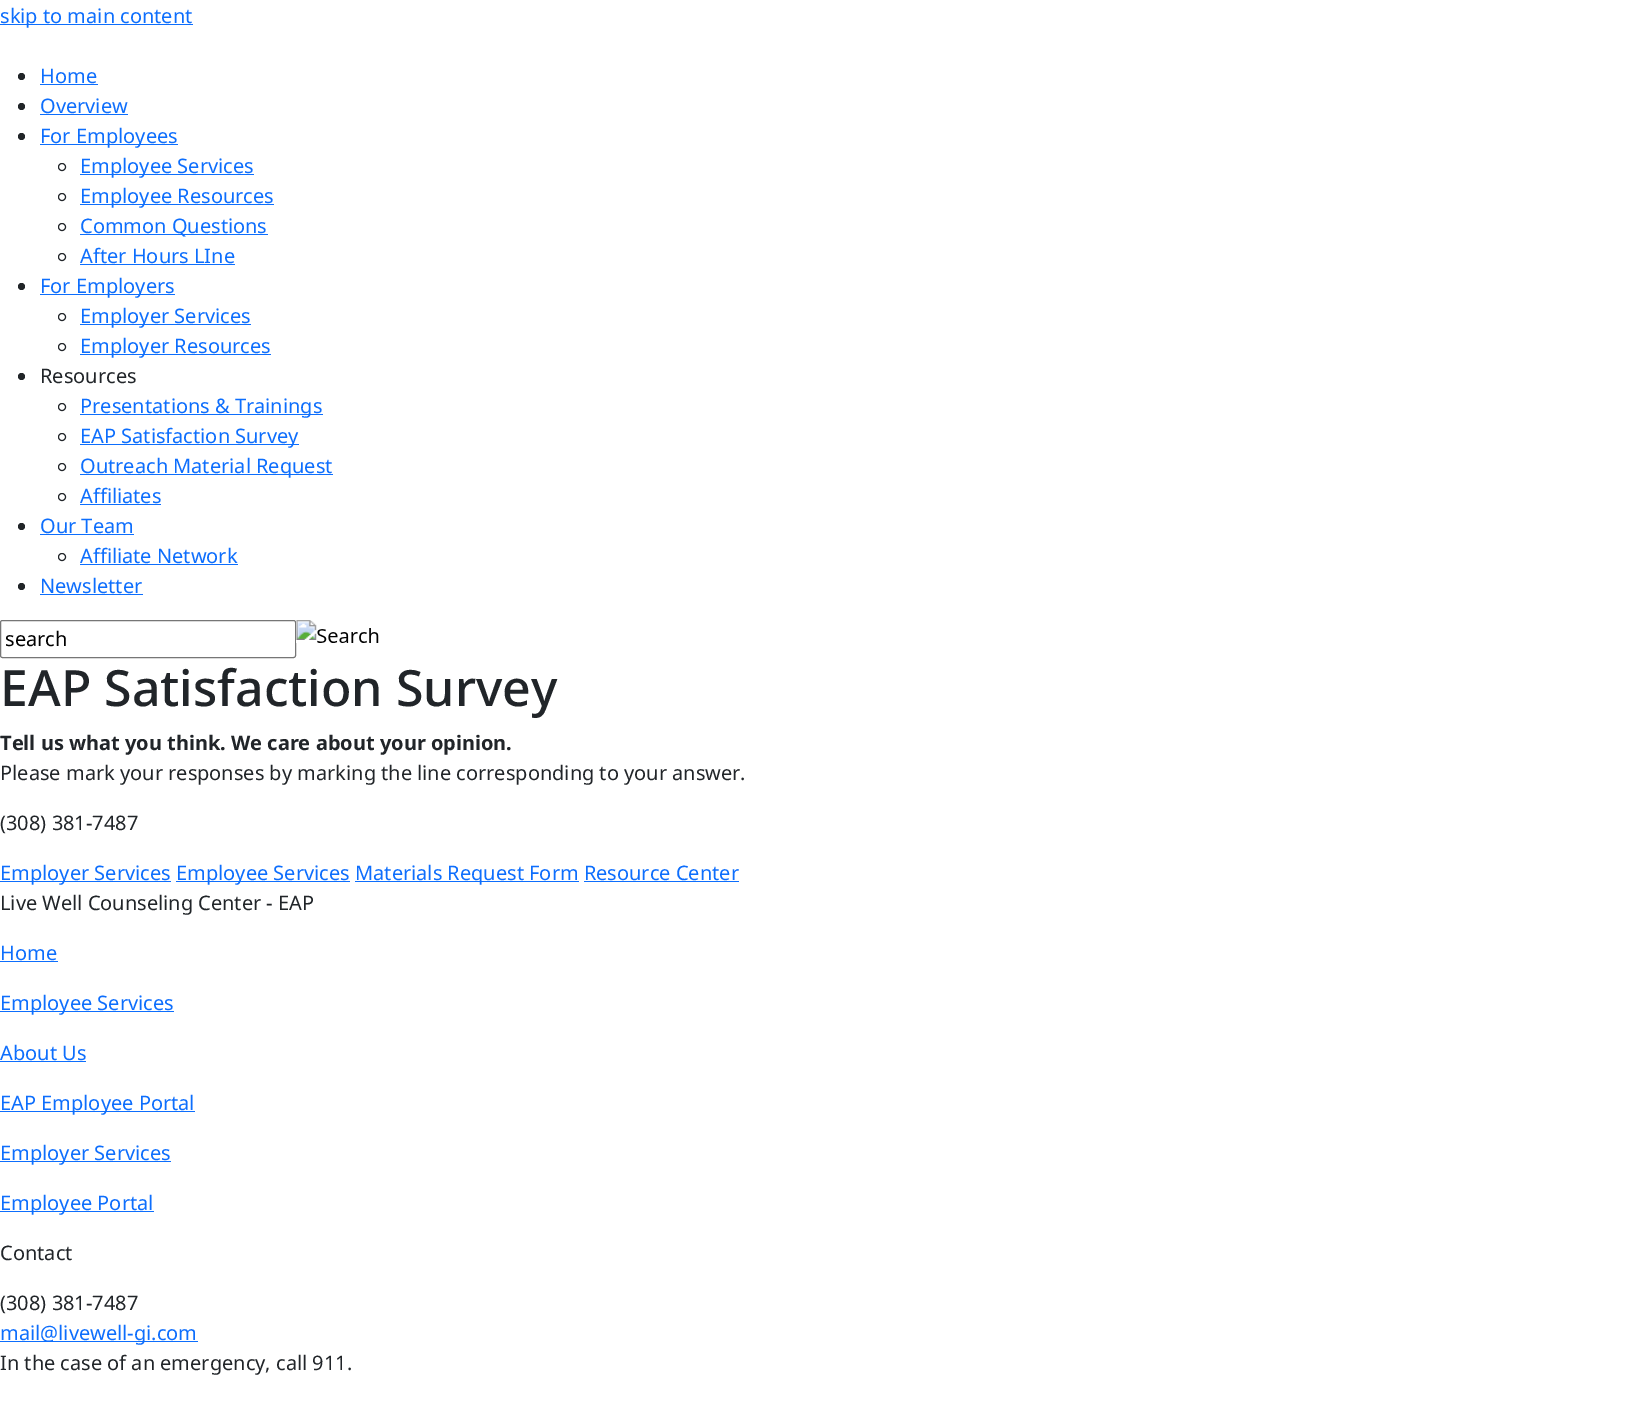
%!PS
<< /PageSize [1650 1414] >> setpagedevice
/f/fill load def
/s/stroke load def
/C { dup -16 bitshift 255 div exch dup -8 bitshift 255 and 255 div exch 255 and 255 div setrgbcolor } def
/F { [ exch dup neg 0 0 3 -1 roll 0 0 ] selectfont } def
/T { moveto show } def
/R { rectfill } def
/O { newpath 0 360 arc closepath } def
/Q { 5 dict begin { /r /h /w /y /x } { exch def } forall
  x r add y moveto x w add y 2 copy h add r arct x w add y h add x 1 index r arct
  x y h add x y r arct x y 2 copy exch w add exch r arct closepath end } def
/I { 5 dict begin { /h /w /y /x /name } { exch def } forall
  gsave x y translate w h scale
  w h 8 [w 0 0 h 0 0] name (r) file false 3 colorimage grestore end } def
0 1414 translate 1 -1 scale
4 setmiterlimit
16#FFFFFF C
0 0 1650 1414 R
16#0D6EFD C
0 24 193 1 R
/NotoSans-Regular 20 F
(skip to main content) 0 23 T
16#212529 C
21.5 76.5 3.5 O f
16#0D6EFD C
(Home) 40 83 T
40 84 58 1 R
16#212529 C
21.5 106.5 3.5 O f
16#0D6EFD C
(Overview) 40 113 T
40 114 88 1 R
16#212529 C
21.5 136.5 3.5 O f
16#0D6EFD C
40 144 138 1 R
(For Employees) 40 143 T
16#212529 C
62 167 3.5 O s
16#0D6EFD C
80 174 174 1 R
(Employee Services) 80 173 T
16#212529 C
62 197 3.5 O s
16#0D6EFD C
80 204 194 1 R
(Employee Resources) 80 203 T
16#212529 C
62 227 3.5 O s
16#0D6EFD C
80 234 188 1 R
(Common Questions) 80 233 T
16#212529 C
62 257 3.5 O s
16#0D6EFD C
(After Hours LIne) 80 263 T
80 264 155 1 R
16#212529 C
21.5 286.5 3.5 O f
16#0D6EFD C
40 294 135 1 R
(For Employers) 40 293 T
16#212529 C
62 317 3.5 O s
16#0D6EFD C
80 324 171 1 R
(Employer Services) 80 323 T
16#212529 C
62 347 3.5 O s
16#0D6EFD C
80 354 191 1 R
(Employer Resources) 80 353 T
16#212529 C
21.5 376.5 3.5 O f
(Resources) 40 383 T
62 407 3.5 O s
16#0D6EFD C
80 414 243 1 R
(Presentations & Trainings) 80 413 T
16#212529 C
62 437 3.5 O s
16#0D6EFD C
80 444 219 1 R
(EAP Satisfaction Survey) 80 443 T
16#212529 C
62 467 3.5 O s
16#0D6EFD C
80 474 253 1 R
(Outreach Material Request) 80 473 T
16#212529 C
62 497 3.5 O s
16#0D6EFD C
(Affiliates) 80 503 T
80 504 81 1 R
16#212529 C
21.5 526.5 3.5 O f
16#0D6EFD C
(Our Team) 40 533 T
40 534 94 1 R
16#212529 C
62 557 3.5 O s
16#0D6EFD C
(Affiliate Network) 80 563 T
80 564 158 1 R
16#212529 C
21.5 586.5 3.5 O f
16#0D6EFD C
(Newsletter) 40 593 T
40 594 103 1 R
16#767676 C
.5 620.5 295 37 2 Q s
16#000000 C
(search) 5 646 T
(1.rgb) 296 620 83 23 I
/NotoSans-Medium 50 F
16#212529 C
(EAP Satisfaction Survey) 0 706 T
/NotoSans-Bold 20 F
(Tell us what you think. We care about your opinion.) 0 750 T
/NotoSans-Regular 20 F
(Please mark your responses by marking the line corresponding to your answer.) 0 780 T
(\(308\) 381-7487) 0 830 T
16#0D6EFD C
0 881 171 1 R
(Employer Services) 0 880 T
176 881 174 1 R
(Employee Services) 176 880 T
355 881 224 1 R
(Materials Request Form Resource Center) 355 880 T
584 881 155 1 R
16#212529 C
(Live Well Counseling Center - EAP) 0 910 T
16#0D6EFD C
(Home) 0 960 T
0 961 58 1 R
0 1011 174 1 R
(Employee Services) 0 1010 T
(About Us) 0 1060 T
0 1061 86 1 R
0 1111 195 1 R
(EAP Employee Portal) 0 1110 T
0 1161 171 1 R
(Employer Services) 0 1160 T
0 1211 154 1 R
(Employee Portal) 0 1210 T
16#212529 C
(Contact) 0 1260 T
(\(308\) 381-7487) 0 1310 T
16#0D6EFD C
0 1341 198 1 R
(mail@livewell-gi.com) 0 1340 T
16#212529 C
(In the case of an emergency, call 911.) 0 1370 T
showpage
